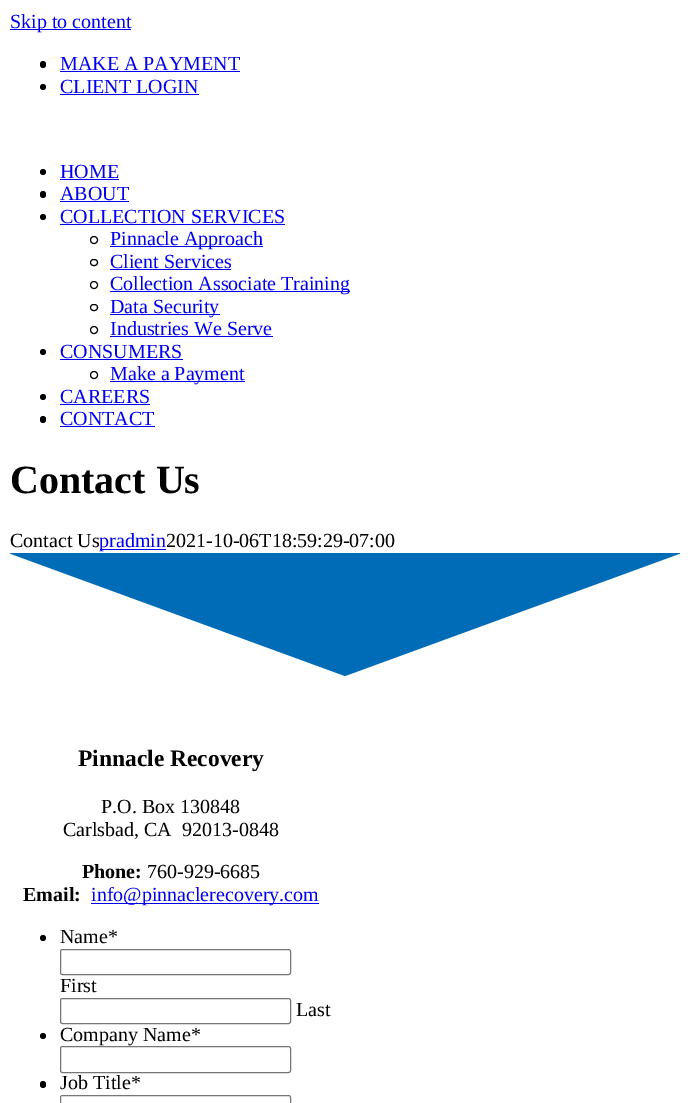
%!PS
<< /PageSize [690 1103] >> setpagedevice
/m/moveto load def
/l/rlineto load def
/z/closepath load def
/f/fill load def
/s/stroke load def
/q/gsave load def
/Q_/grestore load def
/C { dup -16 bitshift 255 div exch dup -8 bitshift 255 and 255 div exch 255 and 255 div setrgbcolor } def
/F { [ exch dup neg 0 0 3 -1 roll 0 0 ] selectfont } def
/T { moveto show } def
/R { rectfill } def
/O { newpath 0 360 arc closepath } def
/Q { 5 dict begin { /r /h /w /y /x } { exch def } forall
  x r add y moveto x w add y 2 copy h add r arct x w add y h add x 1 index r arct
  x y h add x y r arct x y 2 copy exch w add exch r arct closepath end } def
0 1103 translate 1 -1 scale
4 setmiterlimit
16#FFFFFF C
0 0 690 1103 R
16#0000EE C
10 29 121 1 R
/LiberationSerif-Regular 20 F
(Skip to content) 10 28 T
16#000000 C
40 61 6 7 3 Q f
16#0000EE C
(MAKE A PAYMENT) 60 70 T
60 71 180 1 R
16#000000 C
43 87 3 O f
16#0000EE C
(CLIENT LOGIN) 60 93 T
60 94 139 1 R
16#000000 C
43 172 3 O f
16#0000EE C
(HOME) 60 178 T
60 179 59 1 R
16#000000 C
40 191 6 7 3 Q f
16#0000EE C
(ABOUT) 60 200 T
60 201 69 1 R
16#000000 C
43 217 3 O f
16#0000EE C
(COLLECTION SERVICES) 60 223 T
60 224 225 1 R
16#000000 C
94 240 3.5 O s
16#0000EE C
110 246 153 1 R
(Pinnacle Approach) 110 245 T
16#000000 C
90.5 259.5 7 6 3 Q s
16#0000EE C
(Client Services) 110 268 T
110 269 121 1 R
16#000000 C
94 285 3.5 O s
16#0000EE C
110 291 240 1 R
(Collection Associate Training) 110 290 T
16#000000 C
90.5 304.5 7 6 3 Q s
16#0000EE C
110 314 110 1 R
(Data Security) 110 313 T
16#000000 C
94 330 3.5 O s
16#0000EE C
(Industries We Serve) 110 335 T
110 336 163 1 R
16#000000 C
43 352 3 O f
16#0000EE C
(CONSUMERS) 60 358 T
60 359 123 1 R
16#000000 C
94 375 3.5 O s
16#0000EE C
110 381 135 1 R
(Make a Payment) 110 380 T
16#000000 C
43 397 3 O f
16#0000EE C
(CAREERS) 60 403 T
60 404 90 1 R
16#000000 C
40 416 6 7 3 Q f
16#0000EE C
(CONTACT) 60 425 T
60 426 95 1 R
/LiberationSerif-Bold 40 F
16#000000 C
(Contact Us) 10 493 T
/LiberationSerif-Regular 20 F
(Contact Us) 10 547 T
16#0000EE C
100 549 66 1 R
(pradmin) 99 547 T
16#000000 C
(2021-10-06T18:59:29-07:00) 166 547 T
q
10 553 670 125 rectclip
16#006BB6 C
3 551 m 342 125 l 342 -125 l z f
Q_
/LiberationSerif-Bold 23.5 F
(Pinnacle Recovery) 78 766 T
/LiberationSerif-Regular 20 F
(P.O. Box 130848) 101 813 T
(Carlsbad, CA  92013-0848) 63 836 T
/LiberationSerif-Bold 20 F
(Phone:) 82 878 T
/LiberationSerif-Regular 20 F
(760-929-6685) 147 878 T
/LiberationSerif-Bold 20 F
(Email:) 23 901 T
16#0000EE C
91 903 228 1 R
/LiberationSerif-Regular 20 F
(info@pinnaclerecovery.com) 91 901 T
16#000000 C
43 938 3 O f
(Name*) 60 943 T
16#767676 C
60.5 949.5 230 25 2 Q s
16#000000 C
(First) 60 992 T
16#767676 C
60.5 998.5 230 25 2 Q s
16#000000 C
(Last) 296 1016 T
43 1036 3 O f
(Company Name*) 60 1041 T
16#767676 C
60.5 1046.5 230 26 2 Q s
16#000000 C
40 1081 6 7 3 Q f
(Job Title*) 60 1089 T
16#767676 C
60.5 1095.5 230 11 2 Q s
showpage
